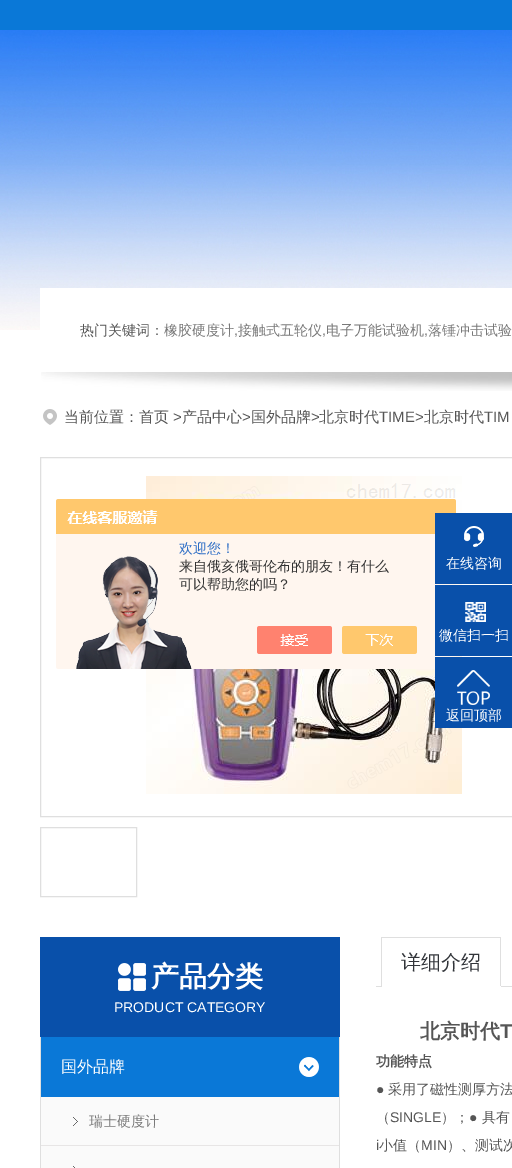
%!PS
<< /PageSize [512 1168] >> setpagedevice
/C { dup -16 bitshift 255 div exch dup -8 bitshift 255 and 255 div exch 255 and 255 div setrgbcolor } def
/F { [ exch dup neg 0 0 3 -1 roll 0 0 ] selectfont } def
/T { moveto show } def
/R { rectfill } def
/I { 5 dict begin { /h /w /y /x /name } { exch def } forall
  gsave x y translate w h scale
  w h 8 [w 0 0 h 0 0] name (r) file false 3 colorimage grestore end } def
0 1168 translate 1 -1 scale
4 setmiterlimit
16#FFFFFF C
0 0 512 1168 R
16#0A78D7 C
0 0 512 30 R
(1.rgb) 0 30 512 300 I
16#FFFFFF C
40 288 472 42 R
(2.rgb) 41 372 471 19 I
/WenQuanYiZenHei-Medium 14 F
16#555555 C
(热门关键词：) 80 335 T
16#797979 C
(橡胶硬度计) 164 335 T
/LiberationSans-Regular 14 F
(,) 234 335 T
/WenQuanYiZenHei-Medium 14 F
(接触式五轮仪) 238 335 T
/LiberationSans-Regular 14 F
(,) 322 335 T
/WenQuanYiZenHei-Medium 14 F
(电子万能试验机) 326 335 T
/LiberationSans-Regular 14 F
(,) 424 335 T
/WenQuanYiZenHei-Medium 14 F
(落锤冲击试验) 428 335 T
(3.rgb) 43 409 14 16 I
/WenQuanYiZenHei-Medium 15 F
16#555555 C
(当前位置：首页) 64 422 T
/LiberationSans-Regular 15 F
(>) 173 422 T
/WenQuanYiZenHei-Medium 15 F
(产品中心) 182 422 T
/LiberationSans-Regular 15 F
(>) 242 422 T
/WenQuanYiZenHei-Medium 15 F
(国外品牌) 251 422 T
/LiberationSans-Regular 15 F
(>) 311 422 T
/WenQuanYiZenHei-Medium 15 F
(北京时代) 319 422 T
/LiberationSans-Regular 15 F
(TIME>) 379 422 T
/WenQuanYiZenHei-Medium 15 F
(北京时代) 424 422 T
/LiberationSans-Regular 15 F
(TIM) 484 422 T
16#DFDFDF C
40.5 457.5 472 359 rectstroke
(8.rgb) 146 476 316 318 I
(4.rgb) 56 499 400 170 I
/WenQuanYiZenHei-Medium 14 F
16#2E6EC6 C
(欢迎您！) 179 553 T
16#333333 C
(来自俄亥俄哥伦布的朋友！有什么) 179 571 T
(可以帮助您的吗？) 179 589 T
16#0950AA C
435 513 77 71 R
(5.rgb) 464 526 20 21 I
16#FFFFFF C
(在线咨询) 446 568 T
16#0950AA C
435 585 77 71 R
(6.rgb) 465 602 21 20 I
16#FFFFFF C
(微信扫一扫) 439 640 T
16#0950AA C
435 657 77 71 R
(7.rgb) 457 670 33 35 I
16#FFFFFF C
(返回顶部) 446 720 T
16#DFDFDF C
40.5 827.5 96 69 rectstroke
16#0950AA C
40 937 300 100 R
(9.rgb) 118 963 28 28 I
/WenQuanYiZenHei-Bold 28 F
16#FFFFFF C
(产品分类) 151 986 T
/LiberationSans-Regular 14 F
(PRODUCT CATEGORY) 114 1012 T
16#DFDFDF C
339 1037 1 131 R
40 1037 1 131 R
16#0A78D7 C
41 1037 298 60 R
/WenQuanYiZenHei-Medium 16 F
16#FFFFFF C
(国外品牌) 61 1072 T
(10.rgb) 299 1057 20 20 I
16#FAFAFA C
41 1097 298 71 R
(11.rgb) 73 1117 5 9 I
/WenQuanYiZenHei-Medium 14 F
16#797979 C
(瑞士硬度计) 89 1126 T
(12.rgb) 73 1166 2 2 I
16#E7E5E5 C
41 1145 298 1 R
16#DFDFDF C
376 986 136 1 R
381 937 120 1 R
500 937 1 50 R
16#FFFFFF C
381 986 120 1 R
16#DFDFDF C
381 937 1 50 R
/WenQuanYiZenHei-Medium 20 F
16#32353A C
(详细介绍) 401 969 T
/WenQuanYiZenHei-Bold 20 F
16#555555 C
(北京时代) 420 1038 T
/LiberationSans-Bold 20 F
(T) 500 1038 T
/WenQuanYiZenHei-Bold 14 F
(功能特点) 376 1066 T
/LiberationSans-Regular 14 F
(●) 376 1094 T
/WenQuanYiZenHei-Medium 14 F
(采用了磁性测厚方法) 388 1094 T
(（) 376 1122 T
/LiberationSans-Regular 14 F
(SINGLE) 390 1122 T
/WenQuanYiZenHei-Medium 14 F
(）；) 441 1122 T
/LiberationSans-Regular 14 F
(●) 469 1122 T
/WenQuanYiZenHei-Medium 14 F
(具有) 482 1122 T
/LiberationSans-Regular 14 F
(i) 376 1150 T
/WenQuanYiZenHei-Medium 14 F
(小值（) 379 1150 T
/LiberationSans-Regular 14 F
(MIN) 421 1150 T
/WenQuanYiZenHei-Medium 14 F
(）、测试次) 447 1150 T
showpage
